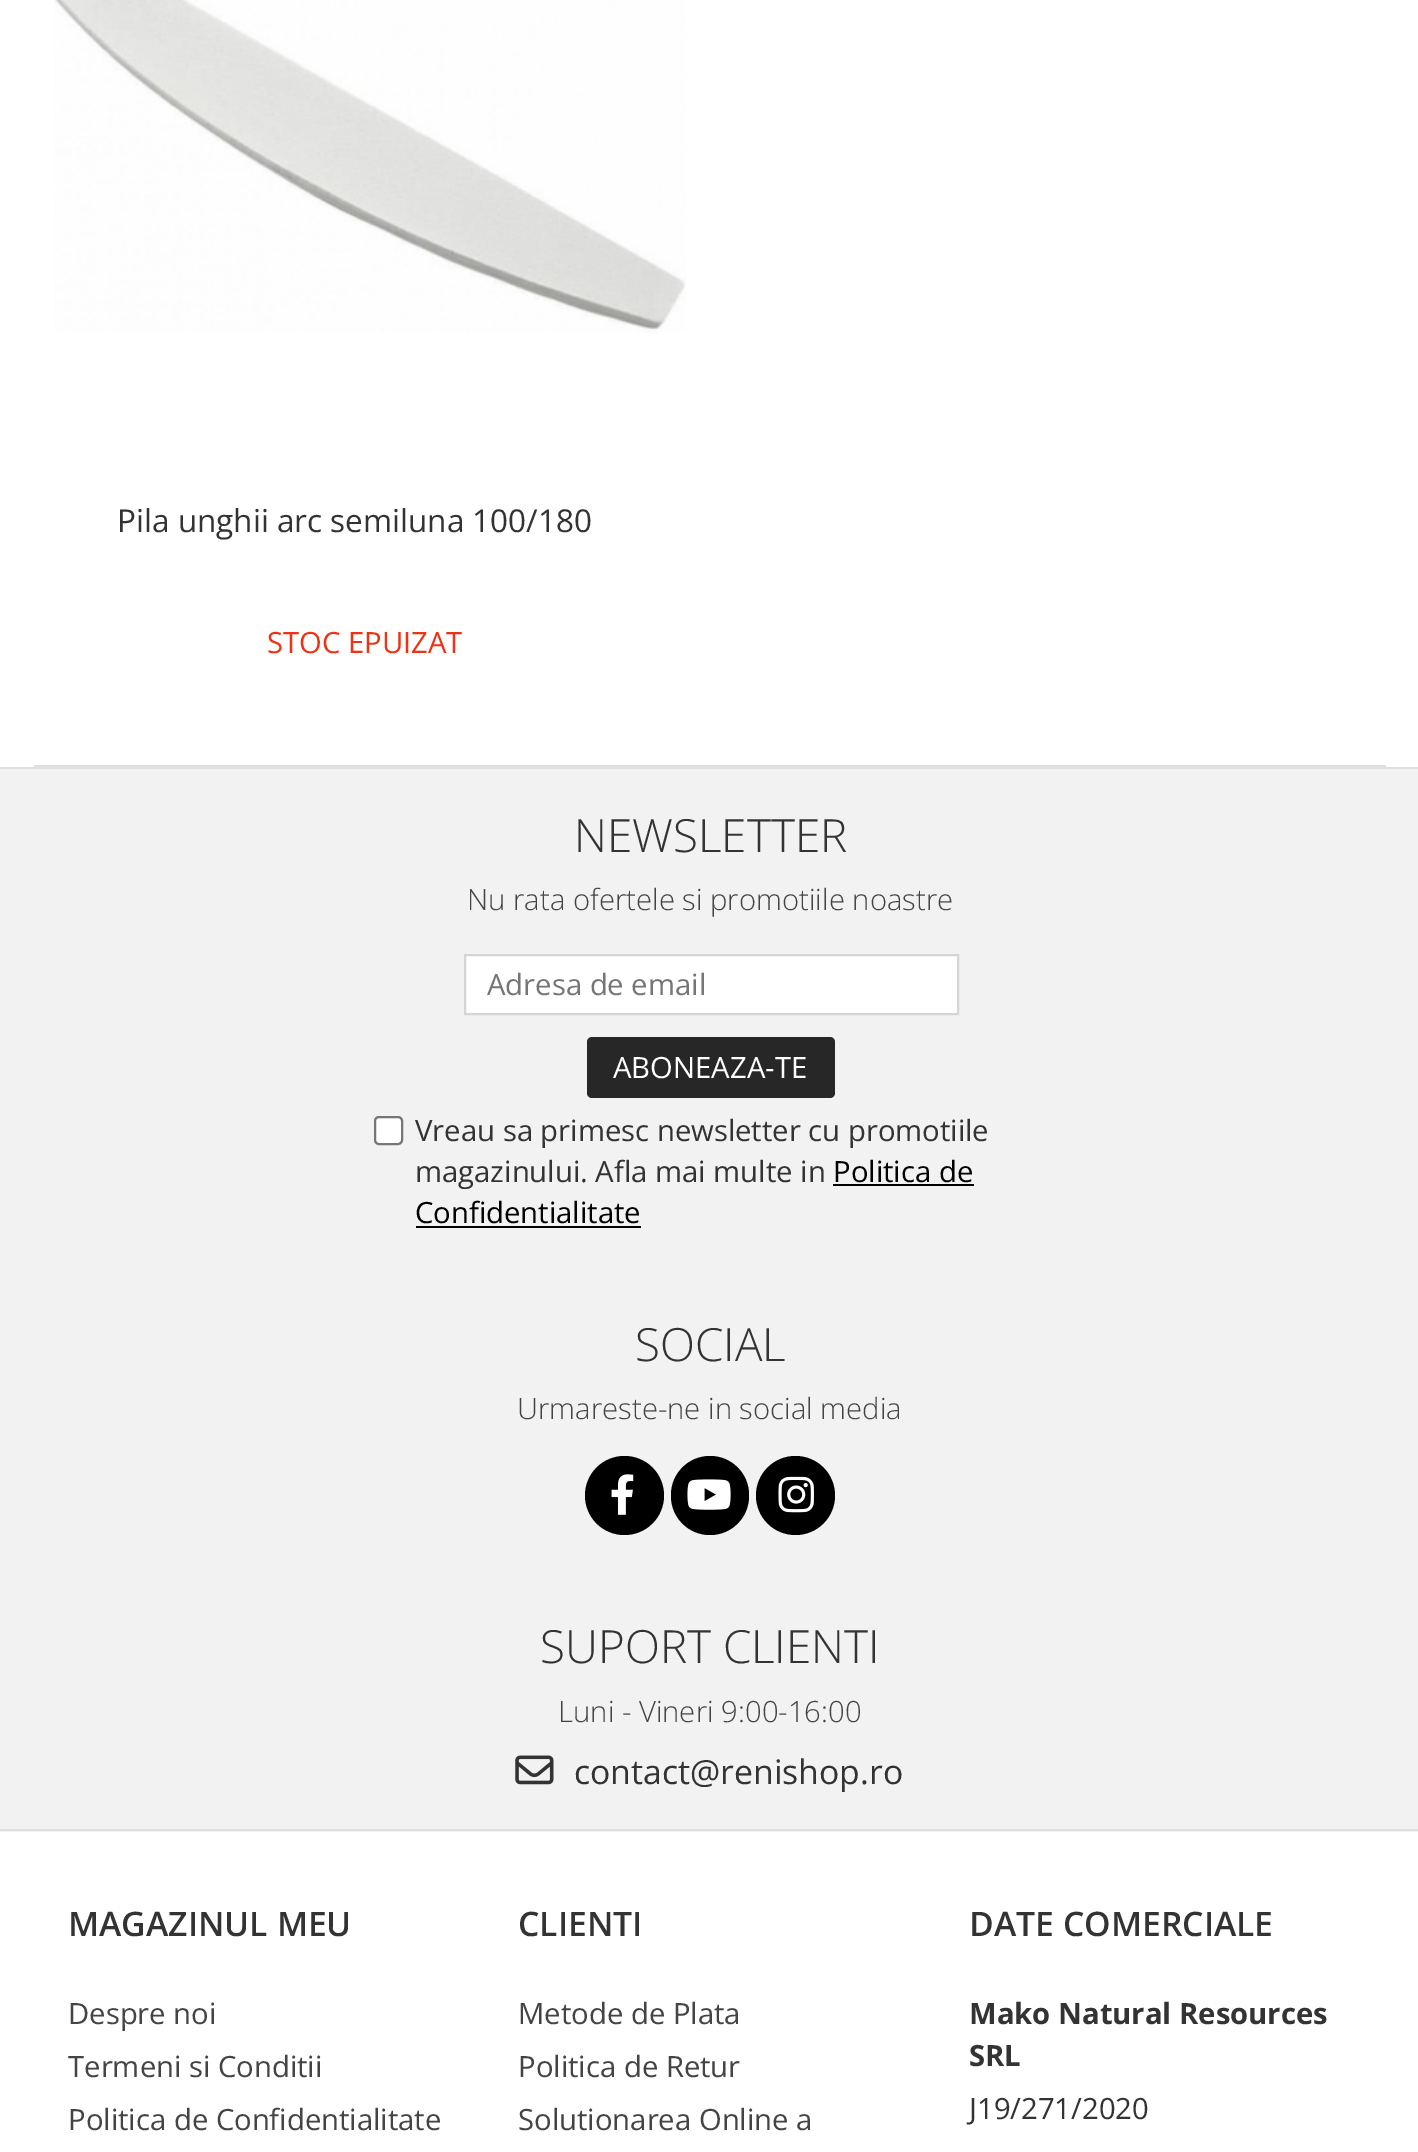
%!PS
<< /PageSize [1418 2152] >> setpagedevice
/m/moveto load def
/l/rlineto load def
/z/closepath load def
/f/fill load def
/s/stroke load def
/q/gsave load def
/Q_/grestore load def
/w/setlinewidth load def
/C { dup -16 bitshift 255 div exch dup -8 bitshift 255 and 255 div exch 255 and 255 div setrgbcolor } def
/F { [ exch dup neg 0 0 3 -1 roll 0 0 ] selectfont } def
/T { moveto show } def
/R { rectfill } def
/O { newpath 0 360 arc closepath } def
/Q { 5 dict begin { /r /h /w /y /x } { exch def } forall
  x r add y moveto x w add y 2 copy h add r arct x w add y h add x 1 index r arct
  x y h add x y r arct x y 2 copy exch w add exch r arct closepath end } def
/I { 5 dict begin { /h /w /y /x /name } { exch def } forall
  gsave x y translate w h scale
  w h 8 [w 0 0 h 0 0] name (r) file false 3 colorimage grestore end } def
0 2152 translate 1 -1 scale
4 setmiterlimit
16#FFFFFF C
0 0 1418 2152 R
16#DFDFDF C
34 765 1352 2 R
(1.rgb) 54 0 632 333 I
/OpenSans-Regular 31.5 F
16#333333 C
(Pila unghii arc semiluna 100/180) 117 532 T
/OpenSans-Regular 29.25 F
16#EE3214 C
(STOC EPUIZAT) 267 653 T
16#F2F2F2 C
0 769 1418 1063 R
16#DFDFDF C
0 767 1418 2 R
0 1829 1418 2 R
/OpenSans-Light 45.75 F
16#333333 C
(NEWSLETTER) 574 852 T
/OpenSans-Light 29.25 F
16#444444 C
(Nu rata ofertele si promotiile noastre) 467 910 T
16#FFFFFF C
465 955 m 493 0 l 0 59 l -493 0 l z q f Q_
16#D5D5D5 C
2 w
s
/OpenSans-Regular 29.25 F
16#757575 C
(Adresa de email) 487 995 T
16#272727 C
587 1037 248 61 5 Q f
16#FFFFFF C
(ABONEAZA-TE) 613 1078 T
375 1117 27 27 4 Q q f Q_
16#767676 C
s
16#333333 C
(Vreau sa primesc newsletter cu promotiile) 415 1141 T
(magazinului. Afla mai multe in) 415 1182 T
16#000000 C
(Politica de) 833 1182 T
833 1184 141 2 R
(Confidentialitate) 415 1223 T
416 1226 225 2 R
/OpenSans-Light 45.75 F
16#333333 C
(SOCIAL) 635 1361 T
/OpenSans-Light 29.25 F
16#444444 C
(Urmareste-ne in social media) 517 1419 T
16#000000 C
624.5 1495.5 39.5 O f
(2.rgb) 611 1474 23 41 I
671 1456 78 79 39 Q f
(3.rgb) 687 1479 44 31 I
795.5 1495.5 39.5 O f
(4.rgb) 778 1476 36 37 I
/OpenSans-Light 45.75 F
16#333333 C
(SUPORT CLIENTI) 540 1663 T
/OpenSans-Light 29.25 F
16#444444 C
(Luni - Vineri 9:00-16:00) 558 1722 T
(5.rgb) 515 1755 39 30 I
/OpenSans-Regular 33.75 F
16#333333 C
(contact@renishop.ro) 574 1784 T
/OpenSans-SemiBold 33.75 F
(MAGAZINUL MEU) 68 1936 T
/OpenSans-Regular 29.25 F
16#444444 C
(Despre noi) 68 2024 T
(Termeni si Conditii) 68 2077 T
(Politica de Confidentialitate) 68 2130 T
/OpenSans-SemiBold 33.75 F
16#333333 C
(CLIENTI) 518 1936 T
/OpenSans-Regular 29.25 F
16#444444 C
(Metode de Plata) 518 2024 T
(Politica de Retur) 518 2077 T
(Solutionarea Online a) 518 2130 T
/OpenSans-SemiBold 33.75 F
16#333333 C
(DATE COMERCIALE) 969 1936 T
/OpenSans-Bold 29.25 F
(Mako Natural Resources) 969 2024 T
(SRL) 969 2066 T
/OpenSans-Regular 29.25 F
(J19/271/2020) 969 2119 T
showpage
